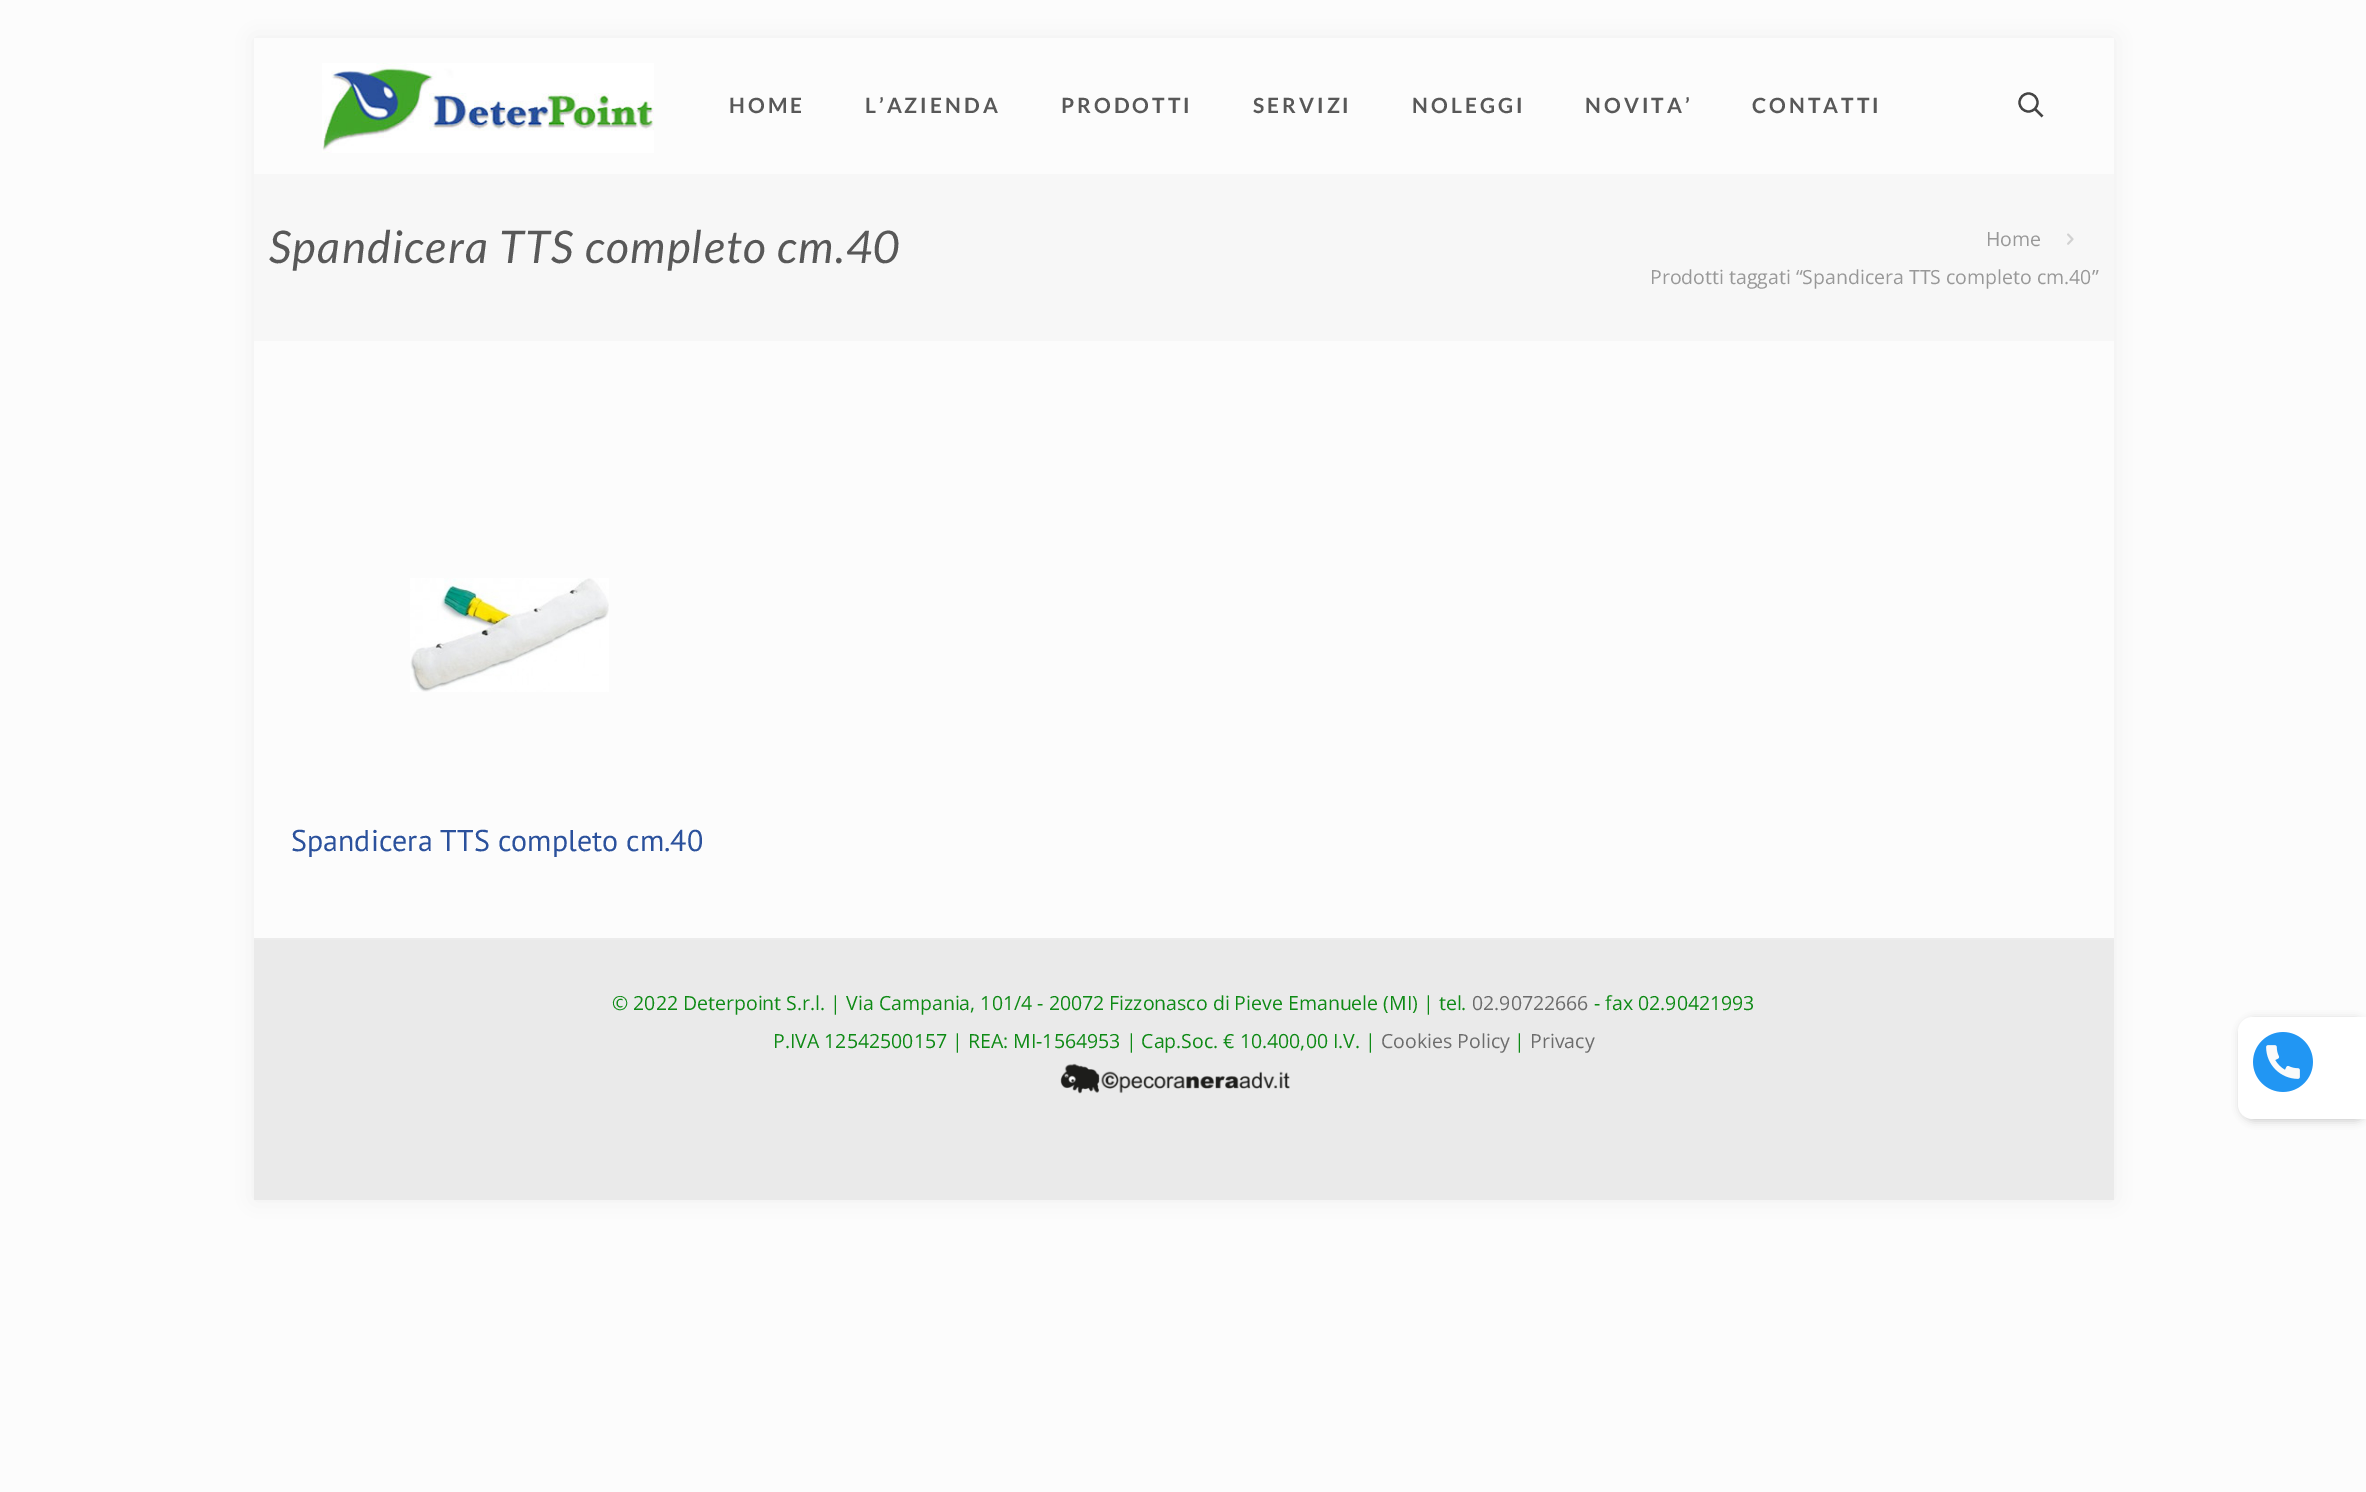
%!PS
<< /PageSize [2366 1492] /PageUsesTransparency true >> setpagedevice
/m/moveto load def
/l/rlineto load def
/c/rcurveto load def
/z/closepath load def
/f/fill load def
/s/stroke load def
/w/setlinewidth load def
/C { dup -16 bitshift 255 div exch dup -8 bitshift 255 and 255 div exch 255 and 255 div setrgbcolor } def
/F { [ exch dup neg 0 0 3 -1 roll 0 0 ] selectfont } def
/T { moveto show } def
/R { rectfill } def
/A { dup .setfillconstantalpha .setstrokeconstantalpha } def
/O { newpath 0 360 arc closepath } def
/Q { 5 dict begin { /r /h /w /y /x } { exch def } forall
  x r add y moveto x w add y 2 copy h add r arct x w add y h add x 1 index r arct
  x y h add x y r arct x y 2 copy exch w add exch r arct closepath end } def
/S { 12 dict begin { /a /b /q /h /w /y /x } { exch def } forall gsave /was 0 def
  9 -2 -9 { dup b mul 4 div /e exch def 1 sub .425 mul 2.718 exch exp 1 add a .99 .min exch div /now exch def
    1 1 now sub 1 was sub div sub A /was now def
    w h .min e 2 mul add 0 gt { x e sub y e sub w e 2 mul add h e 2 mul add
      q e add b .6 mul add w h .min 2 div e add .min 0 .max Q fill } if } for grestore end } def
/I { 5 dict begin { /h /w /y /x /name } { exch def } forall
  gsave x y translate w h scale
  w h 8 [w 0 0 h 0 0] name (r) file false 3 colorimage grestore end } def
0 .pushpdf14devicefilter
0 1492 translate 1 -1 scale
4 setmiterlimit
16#FCFCFC C
0 0 2366 1492 R
16#000000 C
254 38 1860 1162 0 11 .06 S
16#FCFCFC C
254 38 1860 900 R
(1.rgb) 322 63 332 90 I
/Lato-Bold 21 F
16#585858 C
729 113 m 3 0 (HOME) ashow
865 113 m 3 0 (L’AZIENDA) ashow
1061 113 m 3 0 (PRODOTTI) ashow
1253 113 m 3 0 (SERVIZI) ashow
1412 113 m 3 0 (NOLEGGI) ashow
1585 113 m 3 0 (NOVITA’) ashow
1752 113 m 3 0 (CONTATTI) ashow
16#444444 C
2.2 w
2028.5 102.5 9 O s
2035 109 m 7.5 7.5 l s
16#F7F7F7 C
254 174 1860 167 R
/Lato-Italic 45 F
16#585858 C
269 263 m 1.5 0 (Spandicera TTS completo cm.40) ashow
/OpenSans-Regular 19.5 F
16#989898 C
(Home) 1986 246 T
(2.rgb) 2067 233 7 12 I
(Prodotti taggati “Spandicera TTS completo cm.40”) 1650 284 T
(3.rgb) 410 578 199 114 I
/PTSans-Regular 30 F
16#2B519C C
(Spandicera TTS completo cm.40) 291 851 T
16#EAEAEA C
254 940 1860 260 R
16#ECECEC C
254 938 1860 2 R
/OpenSans-Regular 19.5 F
16#0E8A15 C
(© 2022 Deterpoint S.r.l. | Via Campania, 101/4 - 20072 Fizzonasco di Pieve Emanuele \(MI\) | tel.) 612 1010 T
16#6C6C6C C
(02.90722666) 1472 1010 T
16#0E8A15 C
(- fax 02.90421993) 1594 1010 T
(P.IVA 12542500157 | REA: MI-1564953 | Cap.Soc. € 10.400,00 I.V. |) 773 1048 T
16#6C6C6C C
(Cookies Policy) 1381 1048 T
16#0E8A15 C
(|) 1514 1048 T
16#6C6C6C C
(Privacy) 1530 1048 T
16#CCCCCC C
2240 1019 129 102 15 4 1 S
16#FFFFFF C
2253 1017 m 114 0 l 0 102 l -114 0 l -8.5 0 -15 -6.5 -15 -15 c 0 -72 l 0 -8.5 6.5 -15 15 -15 c z f
(4.rgb) 2253 1032 60 60 I
(5.rgb) 1060 1063 230 31 I
.poppdf14devicefilter showpage
